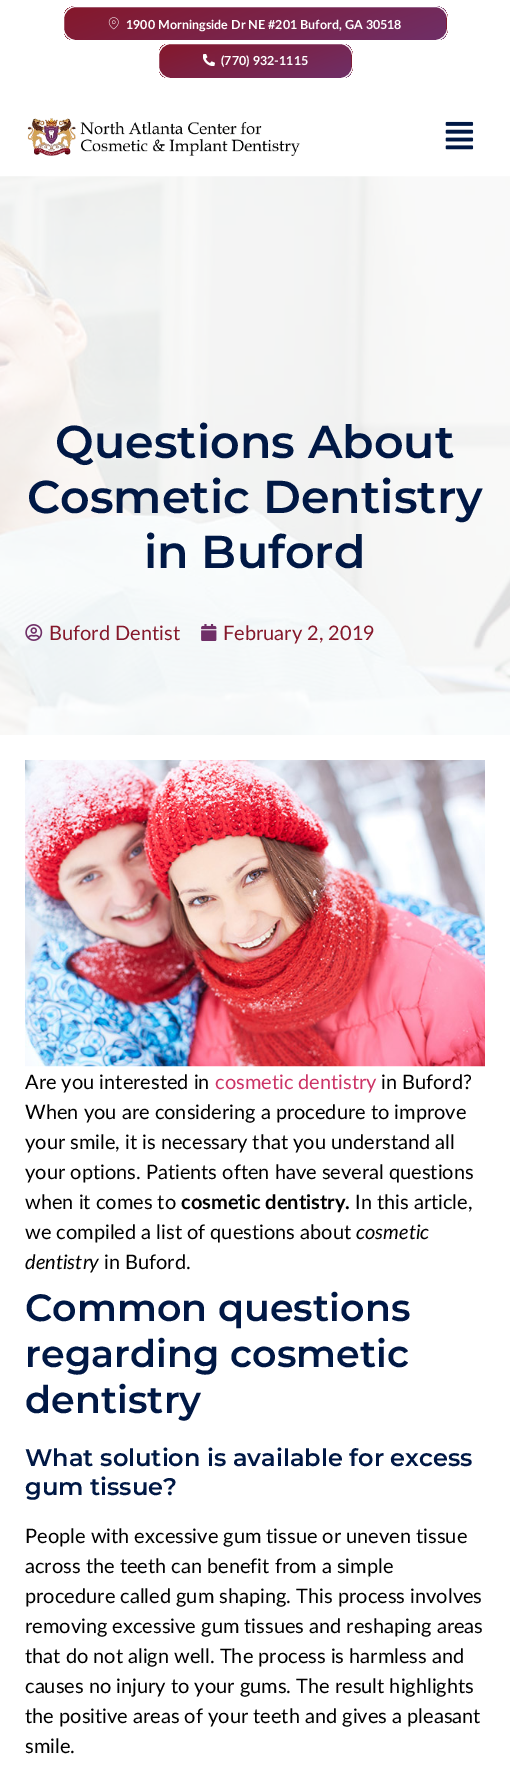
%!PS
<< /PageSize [510 1765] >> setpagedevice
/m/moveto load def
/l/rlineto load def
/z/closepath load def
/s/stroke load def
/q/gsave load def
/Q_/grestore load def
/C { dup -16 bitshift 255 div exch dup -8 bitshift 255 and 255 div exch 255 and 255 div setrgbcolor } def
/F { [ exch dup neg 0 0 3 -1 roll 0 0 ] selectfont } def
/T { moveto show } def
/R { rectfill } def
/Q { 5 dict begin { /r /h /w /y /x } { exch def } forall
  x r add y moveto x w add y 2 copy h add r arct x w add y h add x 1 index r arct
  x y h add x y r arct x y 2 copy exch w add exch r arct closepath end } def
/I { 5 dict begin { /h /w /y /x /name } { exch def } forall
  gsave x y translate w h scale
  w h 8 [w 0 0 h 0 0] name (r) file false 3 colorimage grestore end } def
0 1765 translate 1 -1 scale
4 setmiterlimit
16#FFFFFF C
0 0 510 1765 R
q
63 6 385 35 13 Q clip newpath
q 64 6 m 382 0 l 0 2 l -382 0 l z clip newpath
<< /ShadingType 2 /ColorSpace /DeviceRGB /Coords [227 -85 283 67] /Extend [true true] /Function << /FunctionType 2 /Domain [0 1] /C0 [.522 .094 .169] /C1 [.435 .184 .404] /N 1 >> >> shfill Q_
q 64 8 m 382 0 l 0 32 l -382 0 l z clip newpath
<< /ShadingType 2 /ColorSpace /DeviceRGB /Coords [227 -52 283 100] /Extend [true true] /Function << /FunctionType 2 /Domain [0 1] /C0 [.522 .094 .169] /C1 [.435 .184 .404] /N 1 >> >> shfill Q_
q 446 8 m 2 0 l 0 32 l -2 0 l z clip newpath
<< /ShadingType 2 /ColorSpace /DeviceRGB /Coords [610 -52 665 100] /Extend [true true] /Function << /FunctionType 2 /Domain [0 1] /C0 [.522 .094 .169] /C1 [.435 .184 .404] /N 1 >> >> shfill Q_
Q_
63.5 6.5 384 34 12.5 Q s
(1.rgb) 108 17 11 13 I
/Lato-Bold 12.5 F
(1900 Morningside Dr NE #201 Buford, GA 30518) 126 29 T
q
158 43 195 36 13 Q clip newpath
q 159 44 m 192 0 l 0 34 l -192 0 l z clip newpath
<< /ShadingType 2 /ColorSpace /DeviceRGB /Coords [238 15 272 106] /Extend [true true] /Function << /FunctionType 2 /Domain [0 1] /C0 [.522 .094 .169] /C1 [.435 .184 .404] /N 1 >> >> shfill Q_
q 351 44 m 2 0 l 0 34 l -2 0 l z clip newpath
<< /ShadingType 2 /ColorSpace /DeviceRGB /Coords [431 15 464 106] /Extend [true true] /Function << /FunctionType 2 /Domain [0 1] /C0 [.522 .094 .169] /C1 [.435 .184 .404] /N 1 >> >> shfill Q_
Q_
158.5 43.5 194 35 12.5 Q s
(2.rgb) 203 54 12 12 I
(\(770\) 932-1115) 221 65 T
(3.rgb) 27 118 273 38 I
(4.rgb) 445 121 29 29 I
(5.rgb) 0 176 510 559 I
/Montserrat-SemiBold 46 F
16#001845 C
(Questions About) 55 458 T
(Cosmetic Dentistry) 27 513 T
(in Buford) 144 568 T
(6.rgb) 25 624 18 17 I
/Lato-Regular 20 F
16#85182B C
(Buford Dentist) 49 640 T
(7.rgb) 201 624 16 17 I
(February 2, 2019) 223 640 T
(8.rgb) 25 760 460 307 I
16#000000 C
(Are you interested in) 25 1089 T
16#CC3366 C
(cosmetic dentistry) 215 1089 T
16#000000 C
(in Buford?) 381 1089 T
(When you are considering a procedure to improve) 25 1119 T
(your smile, it is necessary that you understand all) 25 1149 T
(your options. Patients often have several questions) 25 1179 T
(when it comes to) 25 1209 T
/Lato-Bold 20 F
(cosmetic dentistry.) 181 1209 T
/Lato-Regular 20 F
(In this article,) 355 1209 T
(we compiled a list of questions about) 25 1239 T
/Lato-Italic 20 F
(cosmetic) 356 1239 T
(dentistry) 25 1269 T
/Lato-Regular 20 F
(in Buford.) 104 1269 T
/Montserrat-SemiBold 38 F
16#001845 C
(Common questions) 25 1321 T
(regarding cosmetic) 25 1367 T
(dentistry) 25 1413 T
/Montserrat-SemiBold 24 F
(What solution is available for excess) 25 1466 T
(gum tissue?) 25 1495 T
/Lato-Regular 20 F
16#000000 C
(People with excessive gum tissue or uneven tissue) 25 1543 T
(across the teeth can benefit from a simple) 25 1573 T
(procedure called gum shaping. This process involves) 25 1603 T
(removing excessive gum tissues and reshaping areas) 25 1633 T
(that do not align well. The process is harmless and) 25 1663 T
(causes no injury to your gums. The result highlights) 25 1693 T
(the positive areas of your teeth and gives a pleasant) 25 1723 T
(smile.) 25 1753 T
showpage
